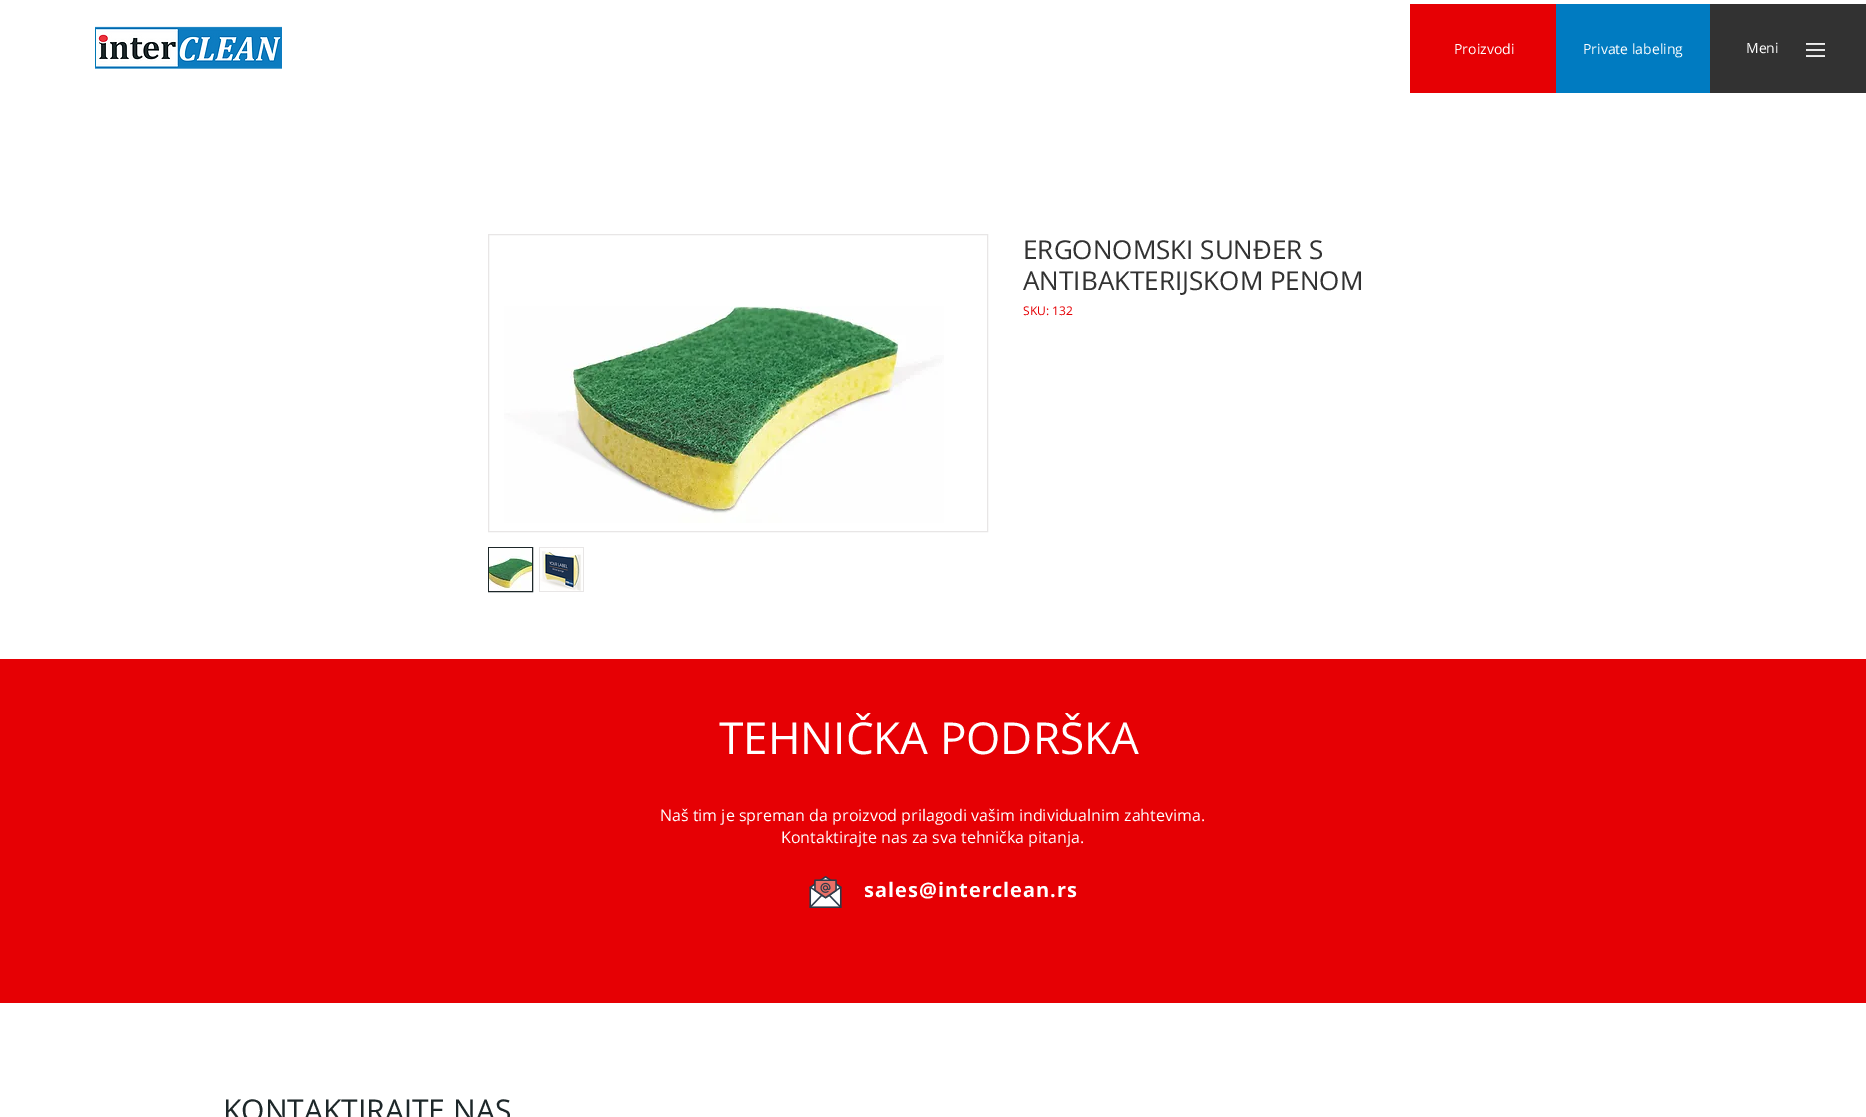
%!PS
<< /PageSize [1866 1117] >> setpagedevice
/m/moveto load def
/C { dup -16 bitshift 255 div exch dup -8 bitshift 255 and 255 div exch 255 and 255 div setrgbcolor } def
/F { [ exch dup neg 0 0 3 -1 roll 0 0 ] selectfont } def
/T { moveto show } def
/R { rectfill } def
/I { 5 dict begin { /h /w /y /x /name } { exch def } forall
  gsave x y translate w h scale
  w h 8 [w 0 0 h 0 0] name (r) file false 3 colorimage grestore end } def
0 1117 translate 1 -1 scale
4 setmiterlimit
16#FFFFFF C
0 0 1866 1117 R
(1.rgb) 95 26 187 43 I
16#E60004 C
1410 4 146 89 R
/OpenSans-Regular 14 F
16#FFFFFF C
(Proizvodi) 1454 54 T
16#007BC1 C
1556 4 154 89 R
16#FFFFFF C
(Private labeling) 1583 54 T
16#323232 C
1710 4 156 89 R
16#FFFFFF C
(Meni) 1746 53 T
(2.rgb) 1806 43 19 14 I
16#E8E6E6 C
488.5 234.5 499 297 rectstroke
(3.rgb) 504 306 440 217 I
16#1D2729 C
488.5 547.5 44 44 rectstroke
(4.rgb) 489 548 43 43 I
16#E8E6E6 C
539 547 45 45 R
(5.rgb) 540 548 43 43 I
/OpenSans-Regular 26 F
16#323232 C
(ERGONOMSKI SUNĐER S) 1023 259 T
(ANTIBAKTERIJSKOM PENOM) 1023 290 T
/OpenSans-Regular 12 F
16#E60004 C
(SKU: 132) 1023 315 T
0 659 1866 344 R
/OpenSans-Regular 44 F
16#FFFFFF C
(TEHNIČKA PODRŠKA) 719 754 T
/OpenSans-Regular 16 F
(Naš tim je spreman da proizvod prilagodi vašim individualnim zahtevima.) 660 821 T
(Kontaktirajte nas za sva tehnička pitanja.) 781 843 T
(6.rgb) 809 876 33 32 I
/OpenSans-Bold 20 F
864 897 m 1 0 (sales@interclean.rs) ashow
/OpenSans-Regular 30 F
16#1D2729 C
(KONTAKTIRAJTE NAS) 223 1121 T
showpage
